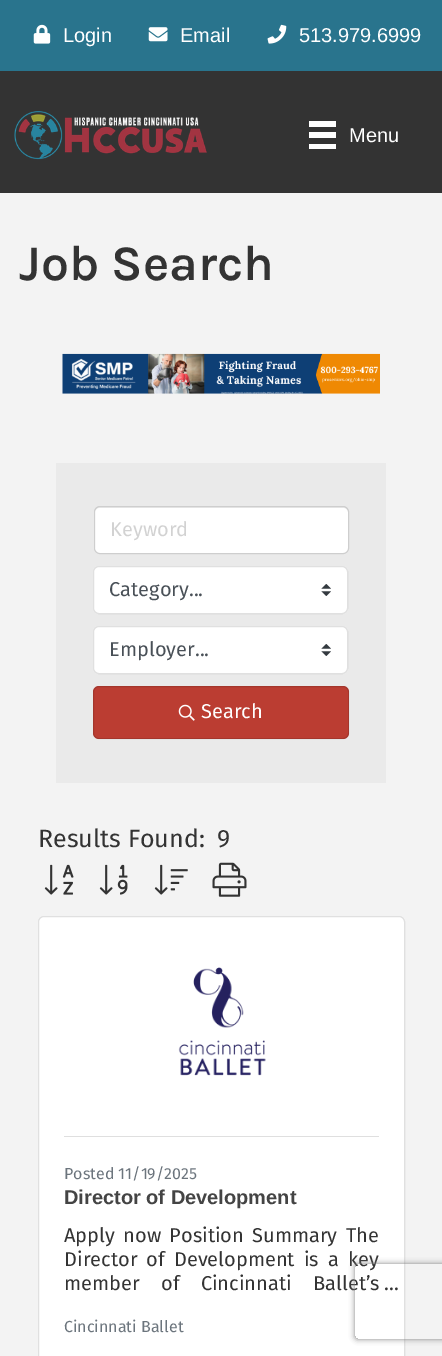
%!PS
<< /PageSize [442 1356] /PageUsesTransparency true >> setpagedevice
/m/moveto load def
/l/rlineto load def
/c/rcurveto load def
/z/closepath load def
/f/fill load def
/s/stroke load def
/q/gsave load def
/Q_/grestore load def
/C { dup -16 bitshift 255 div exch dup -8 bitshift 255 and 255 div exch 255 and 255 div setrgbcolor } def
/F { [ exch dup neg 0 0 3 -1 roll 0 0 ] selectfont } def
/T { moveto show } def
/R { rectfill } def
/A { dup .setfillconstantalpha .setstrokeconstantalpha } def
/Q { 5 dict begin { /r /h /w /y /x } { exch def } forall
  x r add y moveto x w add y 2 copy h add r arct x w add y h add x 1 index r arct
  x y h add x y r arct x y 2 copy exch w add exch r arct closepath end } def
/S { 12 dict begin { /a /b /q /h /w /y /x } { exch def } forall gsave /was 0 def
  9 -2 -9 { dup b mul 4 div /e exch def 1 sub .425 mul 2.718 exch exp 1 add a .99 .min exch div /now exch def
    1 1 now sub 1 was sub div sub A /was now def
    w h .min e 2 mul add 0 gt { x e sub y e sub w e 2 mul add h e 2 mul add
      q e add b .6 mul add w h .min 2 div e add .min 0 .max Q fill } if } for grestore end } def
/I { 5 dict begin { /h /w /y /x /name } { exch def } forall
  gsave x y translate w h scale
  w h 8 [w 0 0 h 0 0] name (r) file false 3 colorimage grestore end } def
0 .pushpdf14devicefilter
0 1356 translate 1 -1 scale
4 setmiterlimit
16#333333 C
0 0 442 1356 R
16#29748D C
0 0 442 71 R
(1.rgb) 33 24 18 20 I
/LiberationSans-Regular 20 F
16#FFFFFF C
(Login) 63 42 T
(2.rgb) 148 27 20 15 I
(Email) 180 42 T
(3.rgb) 267 24 20 20 I
(513.979.6999) 299 42 T
(4.rgb) 14 111 193 49 I
309 121 27 6 R
309 132 27 6 R
309 144 27 5 R
(Menu) 349 142 T
16#F3F3F3 C
0 193 442 1163 R
/Karla-SemiBold 50 F
16#333333 C
(Job Search) 19 280 T
(5.rgb) 62 353 318 41 I
16#EAEAEA C
56 463 330 320 R
16#FFFFFF C
95 508 253 45 5 Q f
0.12 A
16#000000 C
94.5 506.5 254 47 5.5 Q s
/FiraSans-Regular 20 F
1 A
16#D2D2D2 C
(Keyword) 110 536 T
16#FFFFFF C
93 566 255 48 6 Q f
(6.rgb) 321 584 10 12 I
0.12 A
16#000000 C
93.5 566.5 254 47 5.5 Q s
1 A
16#495057 C
(Category...) 109 596 T
16#FFFFFF C
93 626 255 48 6 Q f
(6.rgb) 321 644 10 12 I
0.12 A
16#000000 C
93.5 626.5 254 47 5.5 Q s
1 A
16#495057 C
(Employer...) 109 656 T
16#BB3D32 C
93 686 256 53 6 Q f
0.12 A
16#000000 C
93.5 686.5 255 52 5.5 Q s
1 A
(7.rgb) 178 704 17 17 I
16#FFFFFF C
(Search) 201 718 T
/FiraSans-Regular 25 F
16#333333 C
(Results Found:) 38 847 T
(9) 217 847 T
(8.rgb) 44 864 30 31 I
(9.rgb) 99 864 29 31 I
(10.rgb) 154 864 34 31 I
(11.rgb) 212 862 35 35 I
16#FFFFFF C
38 916 367 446 6 Q f
0.12 A
16#000000 C
38.5 916.5 366 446 5.5 Q s
1 A
(12.rgb) 178 967 88 109 I
16#DFDFDF C
64 1136 315 1 R
/FiraSans-Regular 16 F
16#6C757D C
(Posted 11/19/2025) 64 1179 T
/LiberationSans-Bold 20 F
16#444444 C
(Director of Development) 64 1204 T
/FiraSans-Regular 20 F
16#333333 C
64 1242 m 3 0 32 (Apply now Position Summary The) widthshow
64 1266 m 3.75 0 32 (Director of Development is a key) widthshow
64 1290 m 16 0 32 (member of Cincinnati Ballet’s) widthshow
(...) 384 1290 T
/FiraSans-Regular 16 F
16#6C757D C
(Cincinnati Ballet) 64 1332 T
q
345 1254 m 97 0 l 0 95 l -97 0 l z 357.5 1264 m 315 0 l 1.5 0 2.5 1 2.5 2.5 c 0 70 l 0 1.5 -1 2.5 -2.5 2.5 c -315 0 l -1.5 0 -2.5 -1 -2.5 -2.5 c 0 -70 l 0 -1.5 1 -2.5 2.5 -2.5 c z eoclip newpath
16#808080 C
355 1264 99 75 2.5 3 1 S
Q_
.poppdf14devicefilter showpage
